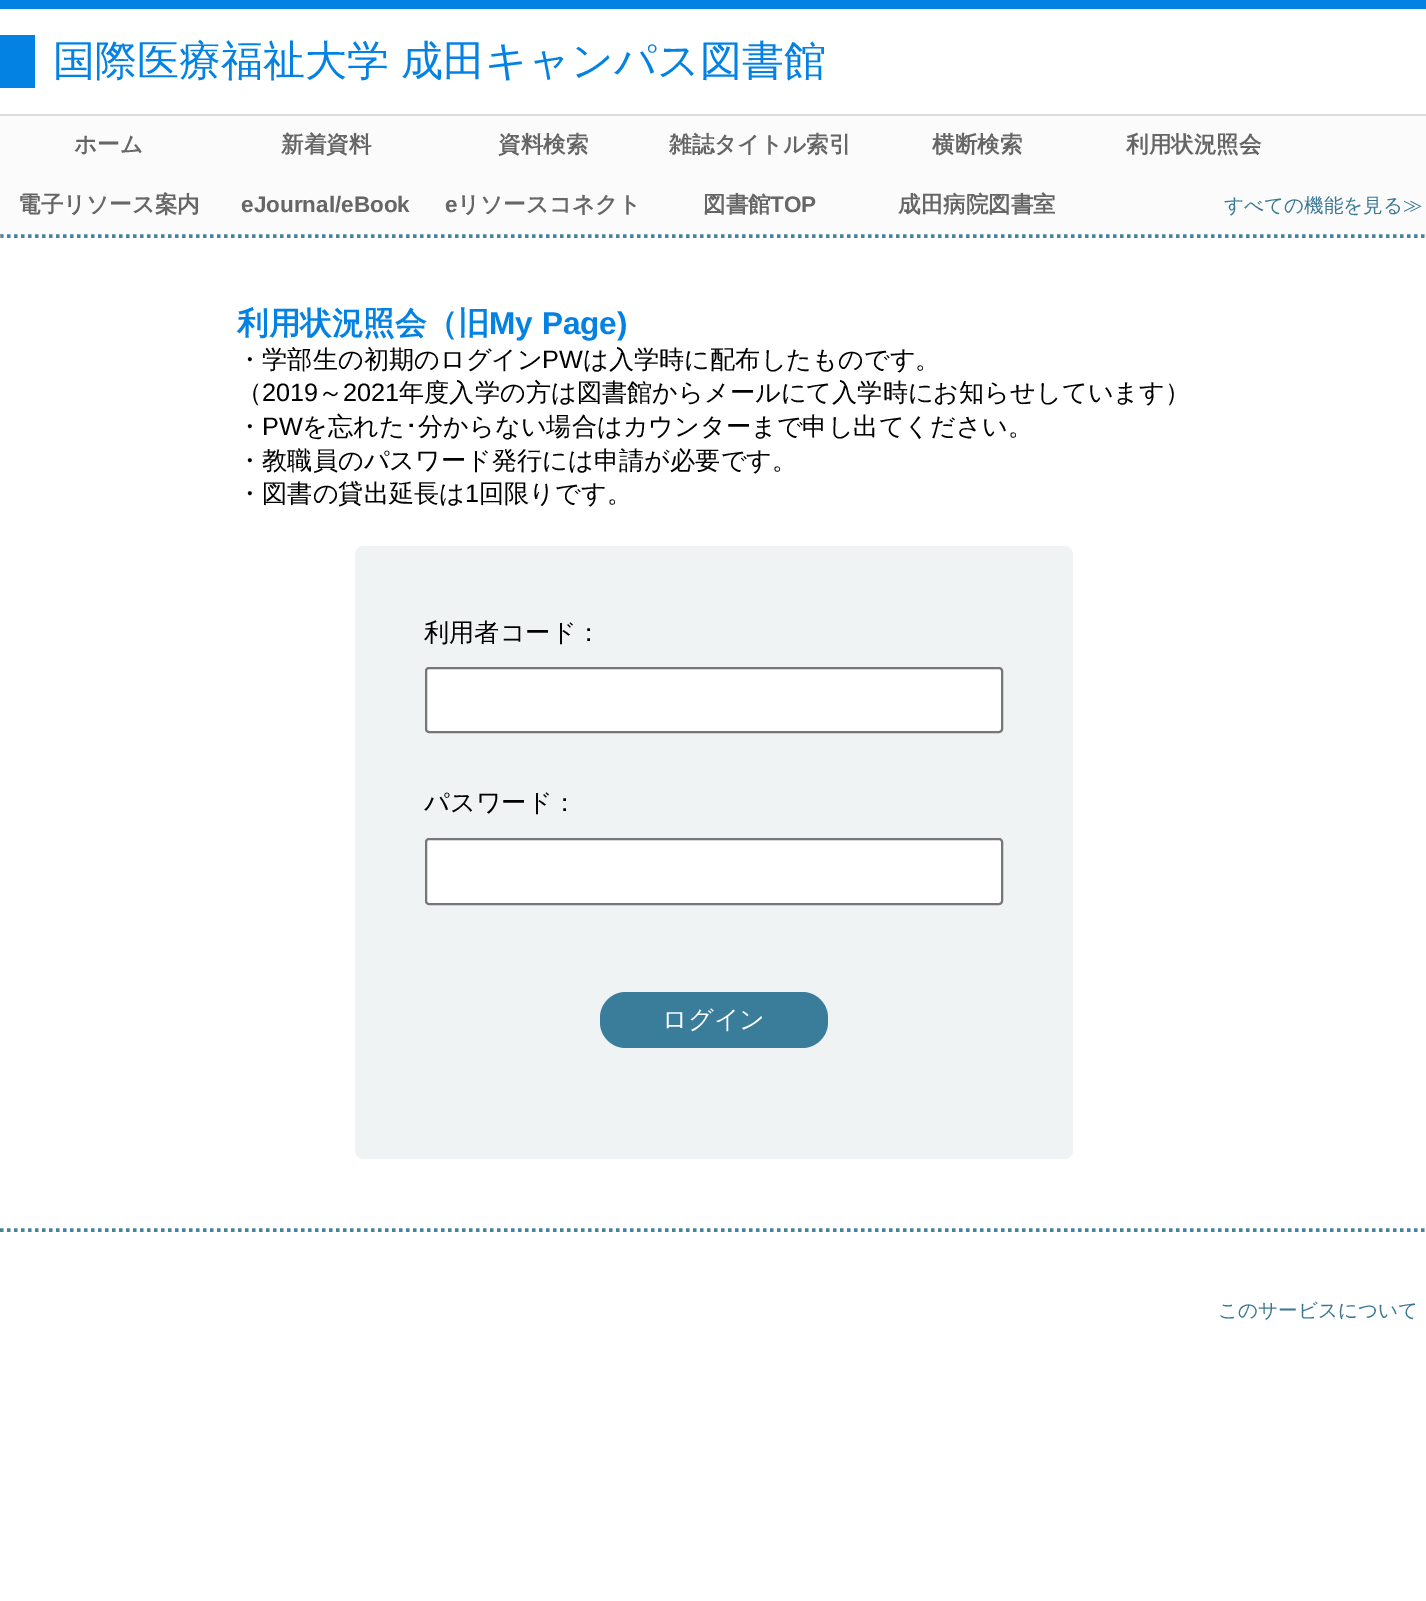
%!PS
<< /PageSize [1426 1601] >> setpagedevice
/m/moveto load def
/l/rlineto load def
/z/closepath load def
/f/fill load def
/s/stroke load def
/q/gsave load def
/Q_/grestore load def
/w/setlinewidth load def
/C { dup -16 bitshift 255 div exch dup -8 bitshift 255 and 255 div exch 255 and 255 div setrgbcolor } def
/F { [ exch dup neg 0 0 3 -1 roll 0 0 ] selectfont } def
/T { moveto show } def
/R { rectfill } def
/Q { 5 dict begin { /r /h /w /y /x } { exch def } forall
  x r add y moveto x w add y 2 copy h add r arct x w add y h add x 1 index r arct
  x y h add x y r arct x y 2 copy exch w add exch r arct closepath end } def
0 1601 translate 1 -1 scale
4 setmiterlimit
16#FFFFFF C
0 0 1426 1601 R
16#0482E3 C
0 0 1426 9 R
0 35 35 53 R
/WenQuanYiZenHei-Medium 42 F
53 75 m -1 0 32 (国際医療福祉大学 成田キャンパス図書館) widthshow
16#FBFBFB C
0 116 1426 119 R
16#DDDDDD C
0 114 1426 2 R
/WenQuanYiZenHei-Bold 22.5 F
16#666666 C
(ホーム) 74 152 T
(新着資料) 281 152 T
(資料検索) 498 152 T
(雑誌タイトル索引) 669 152 T
(横断検索) 932 152 T
(利用状況照会) 1126 152 T
(電子リソース案内) 18 212 T
/LiberationSans-Bold 22.5 F
(eJournal/eBook) 241 212 T
(e) 445 212 T
/WenQuanYiZenHei-Bold 22.5 F
(リソースコネクト) 457 212 T
(図書館) 703 212 T
/LiberationSans-Bold 22.5 F
(TOP) 770 212 T
/WenQuanYiZenHei-Bold 22.5 F
(成田病院図書室) 898 212 T
/WenQuanYiZenHei-Medium 19.6 F
16#387895 C
(すべての機能を見る≫) 1224 212 T
16#4583A1 C
3.5 w
[3.5 3.5] 0 setdash
0 236 m 1426 0 l s
16#EEEEEE C
1426 234.5 m 0 3.5 l -1.5 0 l z f
16#9F9F9F C
0 238 m 0 -3.5 l 2 3.5 l z f
/WenQuanYiZenHei-Bold 31.5 F
16#0482E3 C
(利用状況照会（旧) 237 334 T
/LiberationSans-Bold 31.5 F
(My Page\)) 489 334 T
/WenQuanYiZenHei-Medium 25.2 F
16#000000 C
(・学部生の初期のログイン) 237 368 T
/LiberationSans-Regular 25.2 F
(PW) 542 368 T
/WenQuanYiZenHei-Medium 25.2 F
(は入学時に配布したものです。) 583 368 T
(（) 237 401 T
/LiberationSans-Regular 25.2 F
(2019) 262 401 T
/WenQuanYiZenHei-Medium 25.2 F
(～) 318 401 T
/LiberationSans-Regular 25.2 F
(2021) 343 401 T
/WenQuanYiZenHei-Medium 25.2 F
(年度入学の方は図書館からメールにて入学時にお知らせしています）) 399 401 T
(・) 237 435 T
/LiberationSans-Regular 25.2 F
(PW) 262 435 T
/WenQuanYiZenHei-Medium 25.2 F
(を忘れた) 302 435 T
/IPAPGothic-Regular 25.2 F
(･) 405 435 T
/WenQuanYiZenHei-Medium 25.2 F
(分からない場合はカウンターまで申し出てください。) 418 435 T
(・教職員のパスワード発行には申請が必要です。) 237 469 T
(・図書の貸出延長は) 237 502 T
/LiberationSans-Regular 25.2 F
(1) 465 502 T
/WenQuanYiZenHei-Medium 25.2 F
(回限りです。) 479 502 T
16#EFF3F4 C
355 546 718 613 9 Q f
16#000000 C
(利用者コード：) 424 641 T
16#FFFFFF C
426 668 576 64 3 Q q f Q_
16#767676 C
2 w
[] 0 setdash
s
16#000000 C
(パスワード：) 424 811 T
16#FFFFFF C
426 839 576 65 3 Q q f Q_
16#767676 C
s
16#397D9A C
600 992 228 56 26 Q f
16#FFFFFF C
(ログイン) 662 1028 T
16#4583A1 C
3.5 w
[3.5 3.5] 0 setdash
0 1230 m 1426 0 l s
/WenQuanYiZenHei-Medium 19.6 F
16#387895 C
(このサービスについて) 1218 1317 T
showpage
